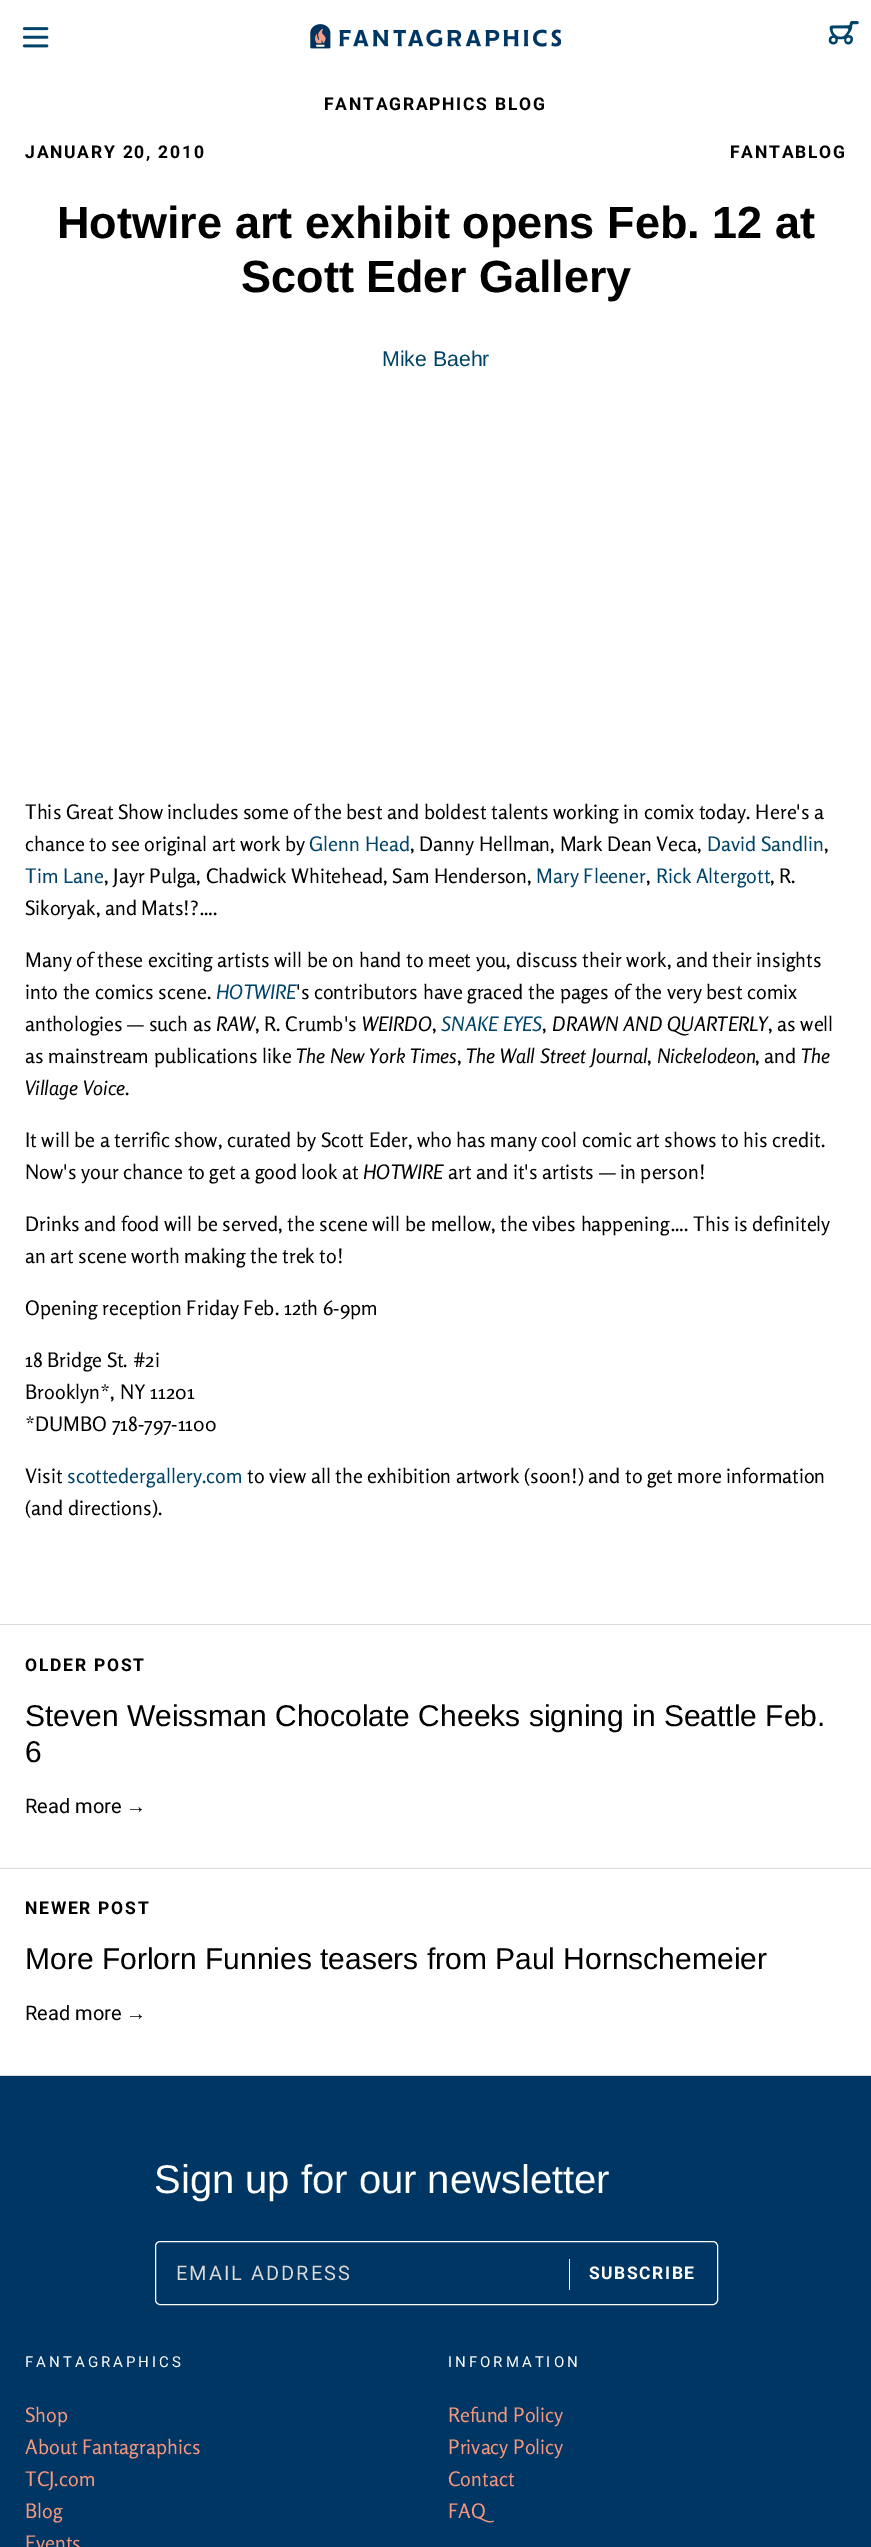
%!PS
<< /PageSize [871 2547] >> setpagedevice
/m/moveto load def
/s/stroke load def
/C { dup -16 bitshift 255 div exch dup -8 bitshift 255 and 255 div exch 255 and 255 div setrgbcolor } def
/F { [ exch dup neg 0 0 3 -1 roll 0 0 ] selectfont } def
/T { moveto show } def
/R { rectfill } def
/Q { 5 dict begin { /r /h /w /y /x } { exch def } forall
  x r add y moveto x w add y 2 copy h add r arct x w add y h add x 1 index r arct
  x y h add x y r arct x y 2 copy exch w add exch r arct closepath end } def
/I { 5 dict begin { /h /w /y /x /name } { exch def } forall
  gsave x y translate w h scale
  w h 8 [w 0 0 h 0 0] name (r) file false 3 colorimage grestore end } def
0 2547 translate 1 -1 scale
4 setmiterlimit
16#FFFFFF C
0 0 871 2547 R
(1.rgb) 22 27 27 21 I
(2.rgb) 310 24 251 25 I
(3.rgb) 828 21 31 24 I
/Roboto-Bold 17.5 F
16#000000 C
324 110 m 1.75 0 (FANTAGRAPHICS BLOG) ashow
25 158 m 1.75 0 (JANUARY 20, 2010) ashow
730 158 m 1.75 0 (FANTABLOG) ashow
/LiberationSans-Bold 45 F
(Hotwire art exhibit opens Feb. 12 at) 57 238 T
(Scott Eder Gallery) 241 292 T
/LiberationSans-Regular 21.25 F
16#004369 C
(Mike Baehr) 382 366 T
/Rosario-Regular 20 F
16#000000 C
(This Great Show includes some of the best and boldest talents working in comix today. Here's a) 25 819 T
(chance to see original art work by) 25 851 T
16#004369 C
(Glenn Head) 309 851 T
16#000000 C
(, Danny Hellman, Mark Dean Veca,) 410 851 T
16#004369 C
(David Sandlin) 707 851 T
16#000000 C
(,) 824 851 T
16#004369 C
(Tim Lane) 25 883 T
16#000000 C
(, Jayr Pulga, Chadwick Whitehead, Sam Henderson,) 104 883 T
16#004369 C
(Mary Fleener) 536 883 T
16#000000 C
(,) 646 883 T
16#004369 C
(Rick Altergott) 656 883 T
16#000000 C
(, R.) 770 883 T
(Sikoryak, and Mats!?….) 25 915 T
(Many of these exciting artists will be on hand to meet you, discuss their work, and their insights) 25 967 T
(into the comics scene.) 25 999 T
/Rosario-Italic 20 F
16#004369 C
(HOTWIRE) 216 999 T
/Rosario-Regular 20 F
16#000000 C
('s contributors have graced the pages of the very best comix) 296 999 T
(anthologies — such as) 25 1031 T
/Rosario-Italic 20 F
(RAW) 216 1031 T
/Rosario-Regular 20 F
(, R. Crumb's) 255 1031 T
/Rosario-Italic 20 F
(WEIRDO) 362 1031 T
/Rosario-Regular 20 F
(,) 432 1031 T
/Rosario-Italic 20 F
16#004369 C
(SNAKE EYES) 441 1031 T
/Rosario-Regular 20 F
16#000000 C
(,) 542 1031 T
/Rosario-Italic 20 F
(DRAWN AND QUARTERLY) 552 1031 T
/Rosario-Regular 20 F
(, as well) 768 1031 T
(as mainstream publications like) 25 1063 T
/Rosario-Italic 20 F
(The New York Times) 296 1063 T
/Rosario-Regular 20 F
(,) 457 1063 T
/Rosario-Italic 20 F
(The Wall Street Journal) 466 1063 T
/Rosario-Regular 20 F
(,) 647 1063 T
/Rosario-Italic 20 F
(Nickelodeon) 657 1063 T
/Rosario-Regular 20 F
(, and) 755 1063 T
/Rosario-Italic 20 F
(The) 801 1063 T
(Village Voice) 25 1095 T
/Rosario-Regular 20 F
(.) 125 1095 T
(It will be a terrific show, curated by Scott Eder, who has many cool comic art shows to his credit.) 25 1147 T
(Now's your chance to get a good look at) 25 1179 T
/Rosario-Italic 20 F
(HOTWIRE) 363 1179 T
/Rosario-Regular 20 F
(art and it's artists — in person!) 448 1179 T
(Drinks and food will be served, the scene will be mellow, the vibes happening…. This is definitely) 25 1231 T
(an art scene worth making the trek to!) 25 1263 T
(Opening reception Friday Feb. 12th 6-9pm) 25 1315 T
(18 Bridge St. #2i) 25 1367 T
(Brooklyn*, NY 11201) 25 1399 T
(*DUMBO 718-797-1100) 25 1431 T
(Visit) 25 1483 T
16#004369 C
(scottedergallery.com) 67 1483 T
16#000000 C
(to view all the exhibition artwork \(soon!\) and to get more information) 247 1483 T
(\(and directions\).) 25 1515 T
16#DADADA C
0 1624 871 1 R
0 1868 871 1 R
/Roboto-Bold 17.5 F
16#000000 C
25 1671 m 1.75 0 (OLDER POST) ashow
/LiberationSans-Regular 30 F
(Steven Weissman Chocolate Cheeks signing in Seattle Feb.) 25 1726 T
(6) 25 1762 T
/Roboto-Regular 20 F
(Read more) 25 1813 T
/LiberationSans-Regular 20 F
(→) 126 1813 T
16#DADADA C
0 2075 871 1 R
/Roboto-Bold 17.5 F
16#000000 C
25 1914 m 1.75 0 (NEWER POST) ashow
/LiberationSans-Regular 30 F
(More Forlorn Funnies teasers from Paul Hornschemeier) 25 1969 T
/Roboto-Regular 20 F
(Read more) 25 2020 T
/LiberationSans-Regular 20 F
(→) 126 2020 T
16#003663 C
0 2076 871 471 R
/LiberationSans-Regular 40 F
16#FFFFFF C
(Sign up for our newsletter) 154 2193 T
155.5 2241.5 562 63 4.5 Q s
/Roboto-Regular 20 F
16#DADADA C
176 2280 m 2 0 (EMAIL ADDRESS) ashow
16#FFFFFF C
569 2259 1 31 R
/Roboto-Bold 17.5 F
589 2279 m 1.5 0 (SUBSCRIBE) ashow
/Roboto-Regular 15 F
25 2367 m 3 0 (FANTAGRAPHICS) ashow
/Rosario-Regular 20 F
16#F6977E C
(Shop) 25 2422 T
(About Fantagraphics) 25 2454 T
(TCJ.com) 25 2486 T
(Blog) 25 2518 T
(Events) 25 2550 T
/Roboto-Regular 15 F
16#FFFFFF C
448 2367 m 3 0 (INFORMATION) ashow
/Rosario-Regular 20 F
16#F6977E C
(Refund Policy) 448 2422 T
(Privacy Policy) 448 2454 T
(Contact) 448 2486 T
(FAQ) 448 2518 T
showpage
